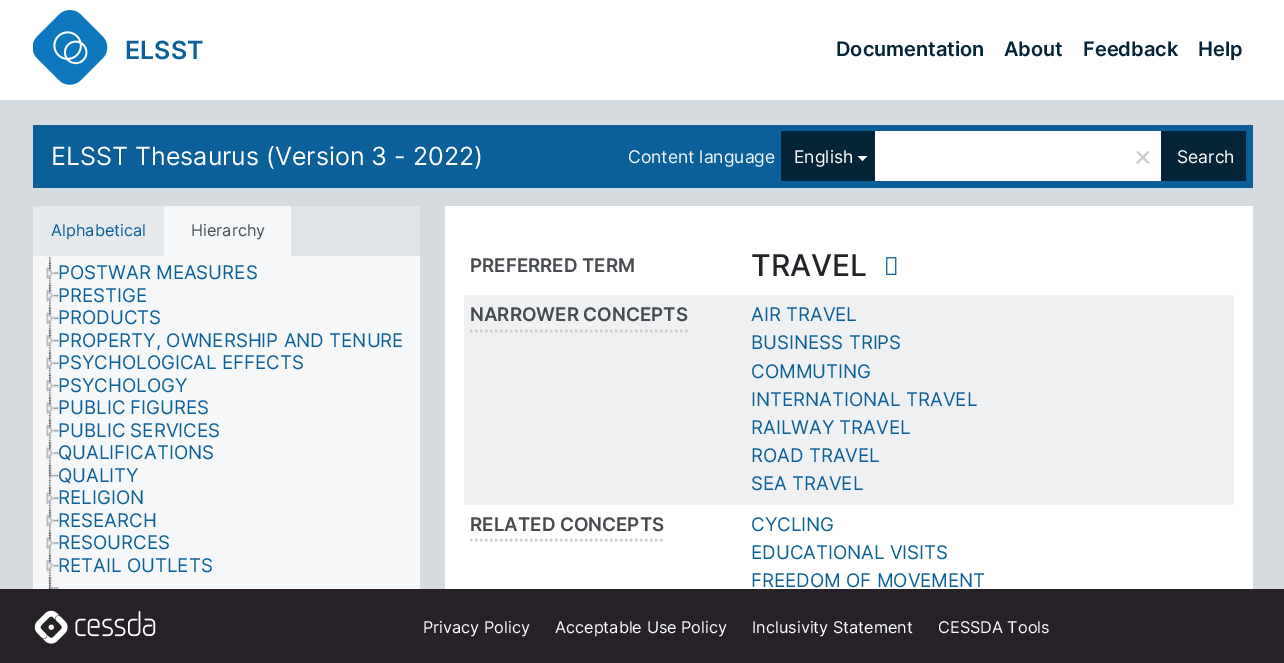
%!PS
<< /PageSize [1284 663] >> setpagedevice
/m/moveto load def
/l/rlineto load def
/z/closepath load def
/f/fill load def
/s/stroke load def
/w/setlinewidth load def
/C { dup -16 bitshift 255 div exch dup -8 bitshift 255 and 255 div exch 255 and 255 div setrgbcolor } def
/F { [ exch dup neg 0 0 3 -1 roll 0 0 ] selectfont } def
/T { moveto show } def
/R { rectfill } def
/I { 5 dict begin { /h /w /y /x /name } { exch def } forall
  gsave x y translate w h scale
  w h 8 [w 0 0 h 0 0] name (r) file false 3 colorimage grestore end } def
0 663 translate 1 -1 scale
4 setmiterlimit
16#D5DBDE C
0 0 1284 663 R
16#FFFFFF C
0 0 1284 100 R
(1.rgb) 33 10 75 75 I
/Inter-SemiBold 25 F
16#0B6099 C
(ELSST) 125 59 T
/Inter-SemiBold 20 F
16#052438 C
(Documentation) 836 56 T
(About) 1004 56 T
(Feedback) 1083 56 T
(Help) 1198 56 T
16#0B6099 C
33 125 1220 63 R
/Inter-Regular 25 F
16#FDFDFE C
(ELSST Thesaurus \(Version 3 - 2022\)) 51 165 T
/Inter-Regular 17.5 F
16#F3F7FA C
(Content language) 628 163 T
16#052438 C
781 131 94 50 R
16#FDFDFE C
(English) 794 163 T
16#FFFFFF C
857.5 156 m 10 0 l -5 5 l z f
875 131 286 50 R
/Inter-Regular 30 F
16#CCCCCC C
(×) 1133 166 T
16#052438 C
1161 131 85 50 R
/Inter-Regular 17.5 F
16#FDFDFE C
(Search) 1177 163 T
16#E0E4E7 C
291 206 129 50 R
16#E6E9EB C
33 206 131 50 R
/Inter-Regular 16.25 F
16#0B6099 C
(Alphabetical) 51 236 T
16#F6F7F8 C
164 206 127 50 R
16#495057 C
(Hierarchy) 191 236 T
16#F6F7F8 C
33 256 387 333 R
(2.rgb) 48 256 4 6 I
(3.rgb) 46 256 3 1 I
(4.rgb) 48 261 4 24 I
(5.rgb) 46 262 13 18 I
/Inter-Regular 18.75 F
16#0B6099 C
(POSTWAR MEASURES) 58 279 T
(6.rgb) 48 284 4 23 I
(7.rgb) 46 284 13 18 I
(PRESTIGE) 58 302 T
(8.rgb) 48 306 4 24 I
(9.rgb) 46 306 13 19 I
(PRODUCTS) 58 324 T
(10.rgb) 48 329 4 23 I
(11.rgb) 46 329 13 18 I
(PROPERTY, OWNERSHIP AND TENURE) 58 347 T
(12.rgb) 48 351 4 24 I
(13.rgb) 46 351 13 19 I
(PSYCHOLOGICAL EFFECTS) 58 369 T
(10.rgb) 48 374 4 23 I
(11.rgb) 46 374 13 18 I
(PSYCHOLOGY) 58 392 T
(14.rgb) 48 397 4 23 I
(15.rgb) 46 396 13 19 I
(PUBLIC FIGURES) 58 414 T
(16.rgb) 48 419 4 23 I
(17.rgb) 46 419 13 18 I
(PUBLIC SERVICES) 58 437 T
(14.rgb) 48 442 4 23 I
(18.rgb) 46 442 13 18 I
(QUALIFICATIONS) 58 459 T
(16.rgb) 48 464 4 23 I
(19.rgb) 48 464 11 13 I
(QUALITY) 58 482 T
(20.rgb) 48 487 4 23 I
(21.rgb) 46 486 13 19 I
(RELIGION) 58 504 T
(16.rgb) 48 509 4 23 I
(22.rgb) 46 509 13 18 I
(RESEARCH) 58 527 T
(12.rgb) 48 531 4 24 I
(23.rgb) 46 532 13 18 I
(RESOURCES) 58 549 T
(10.rgb) 48 554 4 23 I
(24.rgb) 46 554 13 18 I
(RETAIL OUTLETS) 58 572 T
(25.rgb) 48 576 4 13 I
(26.rgb) 48 577 11 12 I
16#FFFFFF C
445 206 808 383 R
/Inter-SemiBold 18.75 F
16#474B4F C
(PREFERRED TERM) 470 272 T
/Inter-Medium 30 F
16#212529 C
(TRAVEL) 751 276 T
(27.rgb) 886 257 11 18 I
16#EFF0F1 C
464 295 770 210 R
16#CCCCCC C
2.5 w
[2.5 2.5] 0 setdash
470 331 m 217.5 0 l s
/Inter-SemiBold 18.75 F
16#474B4F C
(NARROWER CONCEPTS) 470 321 T
/Inter-Regular 18.75 F
16#0B6099 C
(AIR TRAVEL) 751 321 T
(BUSINESS TRIPS) 751 349 T
(COMMUTING) 751 378 T
(INTERNATIONAL TRAVEL) 751 406 T
(RAILWAY TRAVEL) 751 434 T
(ROAD TRAVEL) 751 462 T
(SEA TRAVEL) 751 490 T
16#CCCCCC C
470 540 m 194 0 l s
/Inter-SemiBold 18.75 F
16#474B4F C
(RELATED CONCEPTS) 470 531 T
/Inter-Regular 18.75 F
16#0B6099 C
(CYCLING) 751 531 T
(EDUCATIONAL VISITS) 751 559 T
(FREEDOM OF MOVEMENT) 751 587 T
16#262126 C
0 589 1284 74 R
(28.rgb) 34 610 122 34 I
/Inter-Regular 16.25 F
16#FDFDFE C
(Privacy Policy) 423 633 T
(Acceptable Use Policy) 555 633 T
(Inclusivity Statement) 752 633 T
(CESSDA Tools) 938 633 T
showpage
